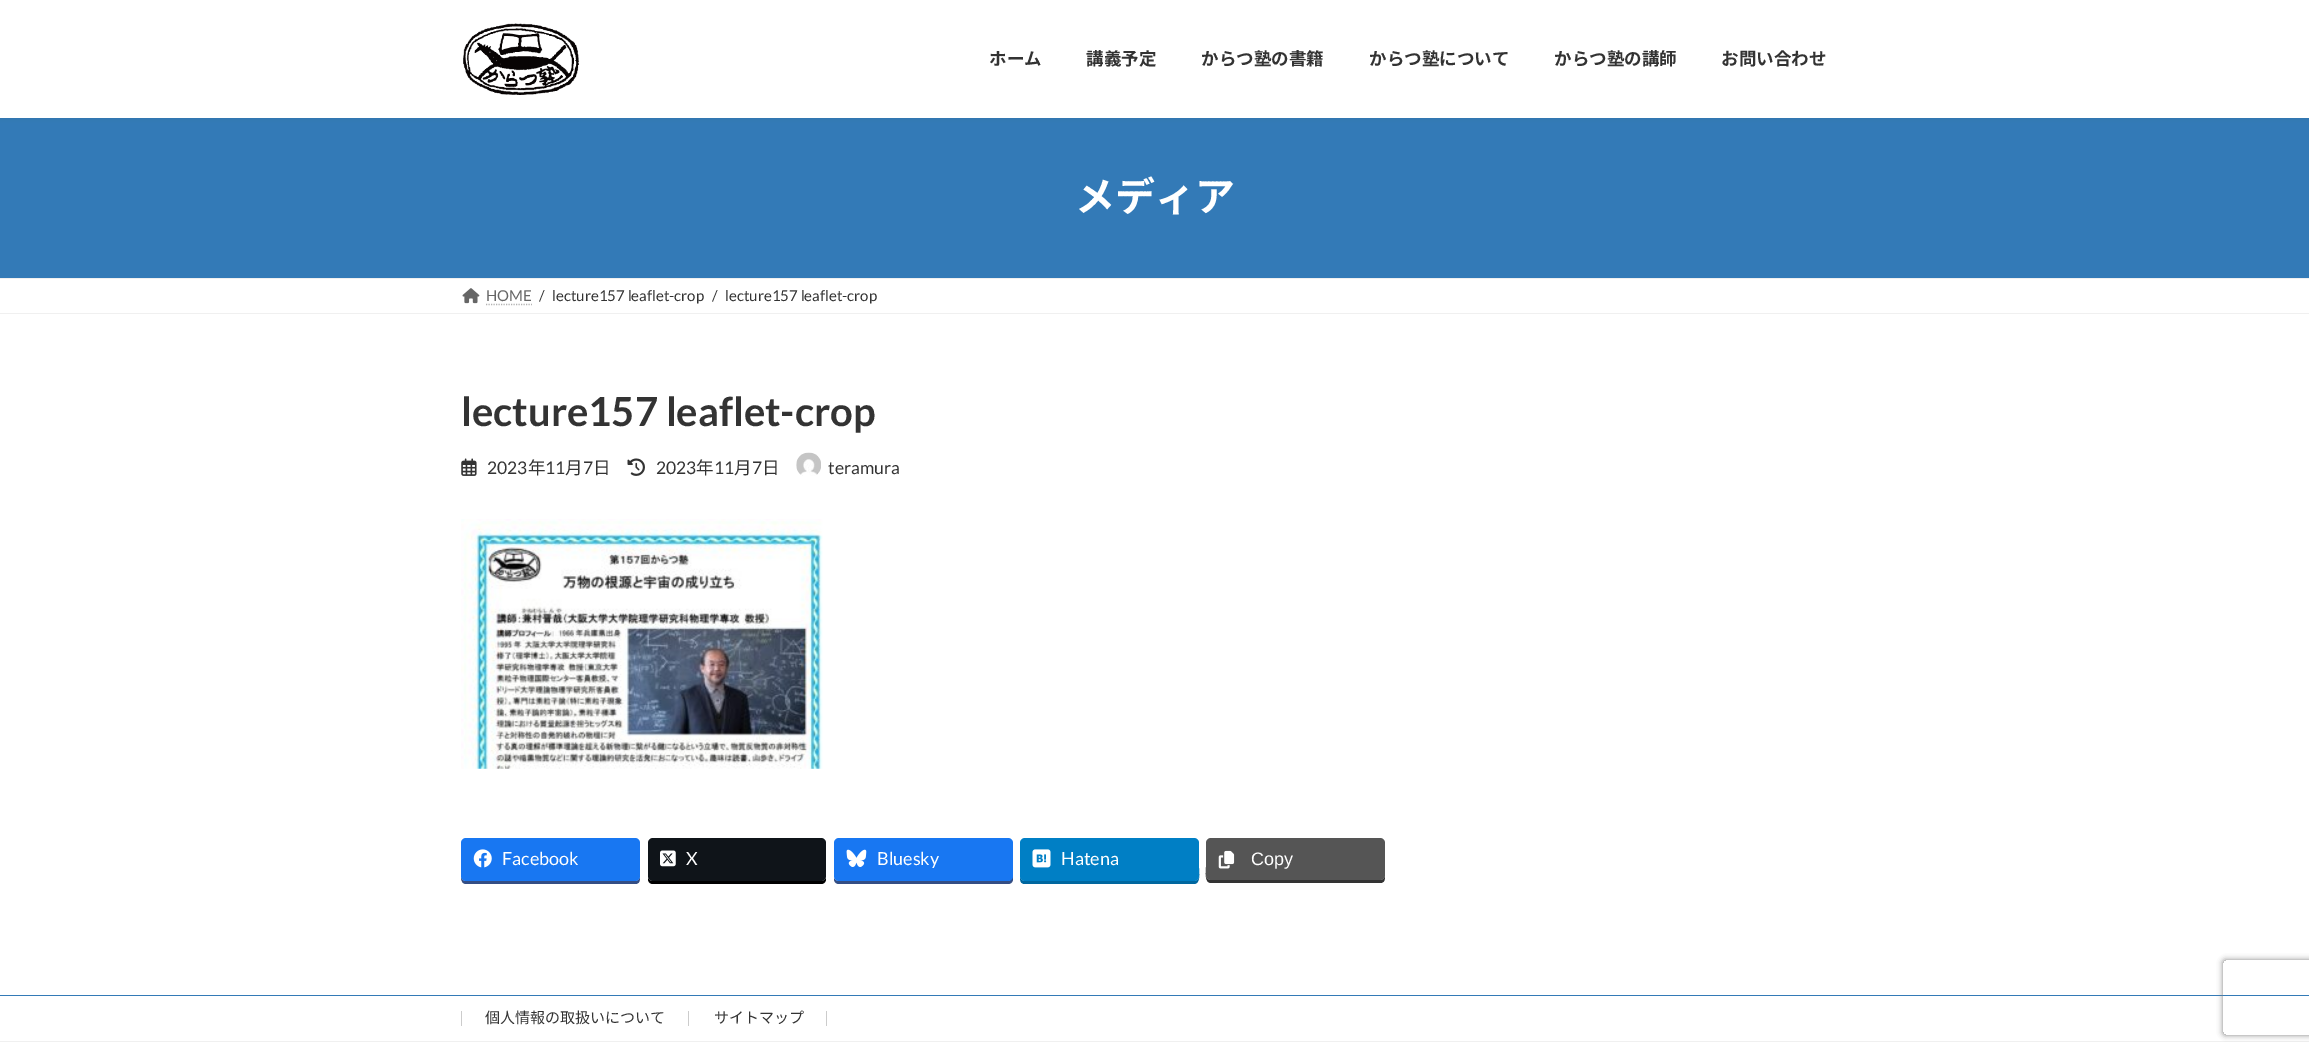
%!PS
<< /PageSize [2309 1052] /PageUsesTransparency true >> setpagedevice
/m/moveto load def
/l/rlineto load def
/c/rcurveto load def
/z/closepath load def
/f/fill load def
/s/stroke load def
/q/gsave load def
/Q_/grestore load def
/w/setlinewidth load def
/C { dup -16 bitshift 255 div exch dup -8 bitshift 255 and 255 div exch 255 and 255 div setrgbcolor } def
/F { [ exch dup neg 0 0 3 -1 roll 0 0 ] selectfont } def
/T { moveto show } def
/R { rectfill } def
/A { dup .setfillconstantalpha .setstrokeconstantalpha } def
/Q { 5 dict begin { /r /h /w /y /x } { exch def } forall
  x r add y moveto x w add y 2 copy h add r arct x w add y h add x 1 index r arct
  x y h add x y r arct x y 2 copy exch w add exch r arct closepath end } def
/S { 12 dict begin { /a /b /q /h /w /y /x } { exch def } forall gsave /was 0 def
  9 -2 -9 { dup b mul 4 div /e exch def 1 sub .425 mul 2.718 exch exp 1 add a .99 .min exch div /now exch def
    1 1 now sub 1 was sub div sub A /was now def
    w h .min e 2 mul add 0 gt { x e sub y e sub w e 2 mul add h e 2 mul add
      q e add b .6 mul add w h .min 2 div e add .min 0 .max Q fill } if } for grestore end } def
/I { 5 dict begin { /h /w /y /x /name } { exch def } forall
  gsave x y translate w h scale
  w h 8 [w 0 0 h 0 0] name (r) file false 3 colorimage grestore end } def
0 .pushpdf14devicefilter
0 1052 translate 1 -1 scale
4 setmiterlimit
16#FFFFFF C
0 0 2309 1052 R
16#337AB7 C
0 118 2309 160 R
16#000000 C
0 1 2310 118 0 2 .05 S
16#FFFFFF C
0 0 2309 118 R
(1.rgb) 463 23 116 72 I
/NotoSansJP-Bold 17.5 F
16#333333 C
(ホーム) 989 65 T
(講義予定) 1086 65 T
(からつ塾の書籍) 1201 65 T
(からつ塾について) 1369 65 T
(からつ塾の講師) 1554 65 T
(お問い合わせ) 1721 65 T
/NotoSansJP-Bold 40 F
16#FFFFFF C
(メディア) 1075 211 T
16#F0F0F0 C
0 278 2309 1 R
0 313 2309 1 R
(2.rgb) 462 288 18 16 I
/Lato-Regular 15 F
16#666666 C
(HOME) 486 301 T
16#B3B3B3 C
1.2 w
[1.25 1.25] 0 setdash
486 304.5 m 46 0 l s
16#333333 C
(/) 539 301 T
(lecture157 leaflet-crop) 552 301 T
(/) 712 301 T
(lecture157 leaflet-crop) 725 301 T
/Lato-Bold 40 F
(lecture157 leaflet-crop) 461 426 T
(3.rgb) 461 458 16 18 I
/Lato-Regular 17.5 F
(2023) 487 474 T
/NotoSansJP-Regular 17.5 F
(年) 528 474 T
/Lato-Regular 17.5 F
(11) 545 474 T
/NotoSansJP-Regular 17.5 F
(月) 565 474 T
/Lato-Regular 17.5 F
(7) 583 474 T
/NotoSansJP-Regular 17.5 F
(日) 593 474 T
(4.rgb) 627 458 18 18 I
/Lato-Regular 17.5 F
(2023) 656 474 T
/NotoSansJP-Regular 17.5 F
(年) 696 474 T
/Lato-Regular 17.5 F
(11) 714 474 T
/NotoSansJP-Regular 17.5 F
(月) 734 474 T
/Lato-Regular 17.5 F
(7) 752 474 T
/NotoSansJP-Regular 17.5 F
(日) 762 474 T
(5.rgb) 796 452 25 24 I
/Lato-Regular 17.5 F
(teramura) 828 474 T
(6.rgb) 461 519 362 250 I
q
461 838 924 47 rectclip
16#344E84 C
461 843 m 0 25 l 0 4 -2 16 5 16 c 169 0 l 5 0 5 -4 5 -8 c 0 3 -2 5 -5 5 c -169 0 l -3 0 -5 -2 -5 -5 c z f
Q_
16#1877F2 C
461 838 179 43 5 Q f
(7.rgb) 473 849 19 19 I
/Lato-Regular 18 F
16#FFFFFF C
(Facebook) 502 865 T
16#000000 C
648 878 m 0 1 l 0 3 2 5 5 5 c 168 0 l 3 0 5 -2 5 -5 c 0 -1 l -1 2 -3 3 -5 3 c -169 0 l -1 0 -3 -1 -4 -3 c z f
16#0F1419 C
648 838 178 43 5 Q f
(8.rgb) 660 850 16 17 I
16#FFFFFF C
(X) 686 865 T
16#344E84 C
834 878 m 0 1 l 0 3 2 5 5 5 c 169 0 l 3 0 5 -2 5 -5 c 0 -34 l -1 -2 l 0 33 l 0 3 -2 5 -4 5 c -169 0 l -2 0 -4 -1 -5 -3 c z f
16#1877F2 C
834 838 179 43 5 Q f
(9.rgb) 846 849 21 18 I
16#FFFFFF C
(Bluesky) 877 865 T
16#00679F C
1020 876 m 0 4 0 8 5 8 c 169 0 l 7 0 5 -12 5 -16 c 0 -25 l 0 33 l 0 3 -2 5 -5 5 c -169 0 l -3 0 -5 -2 -5 -5 c z f
16#007FC5 C
1020 838 179 43 5 Q f
(10.rgb) 1032 849 19 19 I
16#FFFFFF C
(Hatena) 1061 865 T
16#333333 C
1206 843 m 0 24 l 0 4 -2 16 5 16 c 169 0 l 5 0 5 -4 5 -8 c 0 3 -2 5 -5 5 c -169 0 l -3 0 -5 -2 -5 -5 c z f
16#555555 C
1206 838 179 42 5 Q f
(11.rgb) 1218 850 17 19 I
/LiberationSans-Regular 18 F
16#FFFFFF C
(Copy) 1251 865 T
16#337AB7 C
0 995 2309 1 R
16#F0F0F0 C
0 1041 2309 1 R
16#CCCCCC C
688 1011 1 15 R
461 1011 1 15 R
/NotoSansJP-Regular 15 F
16#333333 C
(個人情報の取扱いについて) 485 1023 T
16#CCCCCC C
826 1011 1 15 R
16#333333 C
(サイトマップ) 714 1023 T
q
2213 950 m 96 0 l 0 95 l -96 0 l z 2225.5 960 m 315 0 l 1.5 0 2.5 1 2.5 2.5 c 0 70 l 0 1.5 -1 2.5 -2.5 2.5 c -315 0 l -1.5 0 -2.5 -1 -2.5 -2.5 c 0 -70 l 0 -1.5 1 -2.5 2.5 -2.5 c z eoclip newpath
16#808080 C
2223 960 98 75 2.5 3 1 S
Q_
.poppdf14devicefilter showpage
